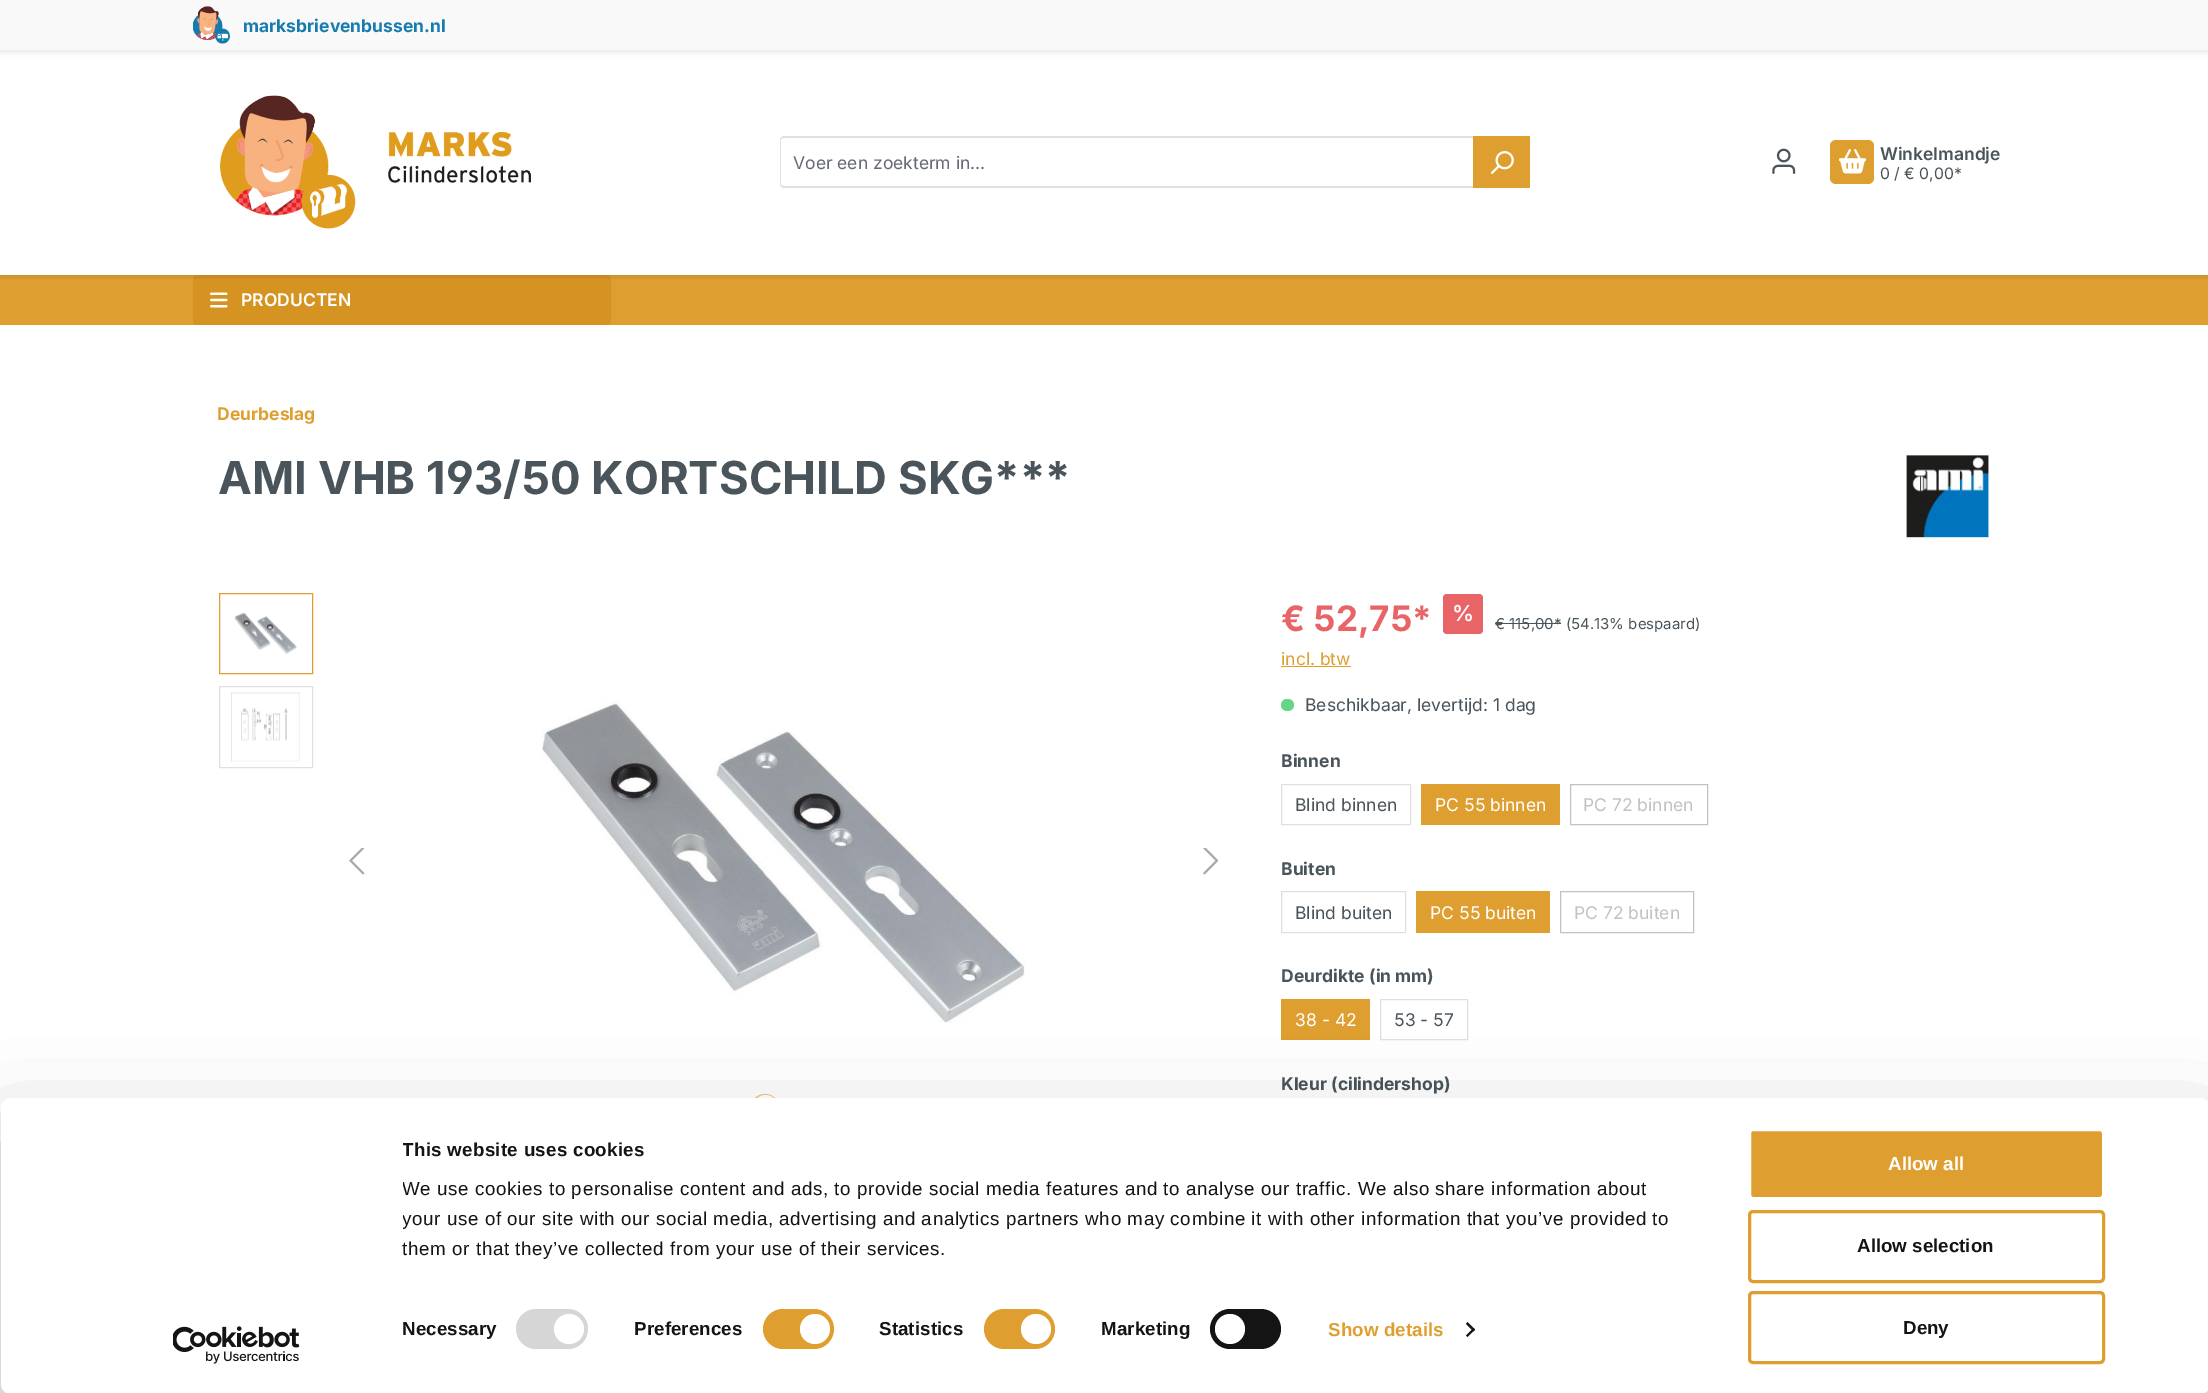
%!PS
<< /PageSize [2208 1393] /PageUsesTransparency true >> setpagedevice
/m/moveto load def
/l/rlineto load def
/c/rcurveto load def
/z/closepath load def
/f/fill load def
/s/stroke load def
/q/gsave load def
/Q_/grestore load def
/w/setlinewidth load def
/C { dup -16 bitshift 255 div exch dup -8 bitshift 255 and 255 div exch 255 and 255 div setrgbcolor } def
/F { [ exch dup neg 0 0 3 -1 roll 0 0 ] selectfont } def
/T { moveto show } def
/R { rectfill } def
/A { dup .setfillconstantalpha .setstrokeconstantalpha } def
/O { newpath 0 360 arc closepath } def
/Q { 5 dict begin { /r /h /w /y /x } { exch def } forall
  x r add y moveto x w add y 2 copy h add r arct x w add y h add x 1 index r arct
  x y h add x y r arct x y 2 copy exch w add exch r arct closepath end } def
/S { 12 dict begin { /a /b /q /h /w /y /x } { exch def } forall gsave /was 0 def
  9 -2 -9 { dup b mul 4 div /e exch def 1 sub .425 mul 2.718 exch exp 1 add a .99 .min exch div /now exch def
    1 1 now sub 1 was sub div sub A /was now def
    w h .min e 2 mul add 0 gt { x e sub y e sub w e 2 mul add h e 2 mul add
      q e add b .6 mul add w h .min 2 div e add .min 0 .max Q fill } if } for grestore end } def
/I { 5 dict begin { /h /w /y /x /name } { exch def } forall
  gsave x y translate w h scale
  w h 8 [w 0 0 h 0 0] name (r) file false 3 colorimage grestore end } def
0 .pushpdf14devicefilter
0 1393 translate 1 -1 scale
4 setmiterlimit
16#FFFFFF C
0 0 2208 1393 R
16#000000 C
0 3 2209 50 0 2.5 .07 S
16#DF9F30 C
0 275 2208 50 R
16#D59321 C
193 275 418 50 4 Q f
q
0 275 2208 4 rectclip
16#000000 C
0 53 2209 225 0 2.5 .07 S
Q_
16#F9F9F9 C
0 0 2208 50 R
(1.rgb) 193 6 37 38 I
/Inter-Bold 17.5 F
16#177BAE C
(marksbrievenbussen.nl) 243 32 T
(2.rgb) 220 95 311 134 I
16#E0E0E0 C
784 136 m 690 0 l 0 52 l -690 0 l -2 0 -4 -2 -4 -4 c 0 -44 l 0 -2 2 -4 4 -4 c z 784 138 m 690 0 l 0 48 l -690 0 l -2 0 -3 -1 -3 -2 c 0 -44 l 0 -1 1 -2 3 -2 c z eofill
/Inter-Regular 17.5 F
16#666977 C
(Voer een zoekterm in...) 793 169 T
16#DF9F30 C
1473 136 57 52 R
(3.rgb) 1491 151 23 23 I
(4.rgb) 1772 148 24 26 I
1830 140 44 44 6 Q f
(5.rgb) 1839 149 27 25 I
/Inter-SemiBold 17.5 F
16#4A545B C
(Winkelmandje) 1880 160 T
/Inter-Regular 15.75 F
(0 / € 0,00*) 1880 179 T
(6.rgb) 210 292 18 16 I
/Inter-SemiBold 17.5 F
16#FFFFFF C
(PRODUCTEN) 241 306 T
/Inter-Bold 17.5 F
16#DF9F30 C
(Deurbeslag) 217 420 T
/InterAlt-Bold 45.4 F
16#4A545B C
(AMI VHB 193/50 KORTSCHILD SKG***) 218 494 T
(7.rgb) 1905 452 86 88 I
16#DF9F30 C
219.5 593.5 93 80 rectstroke
(8.rgb) 234 612 63 43 I
16#E0E0E0 C
219.5 686.5 93 81 rectstroke
(9.rgb) 231 692 69 70 I
(10.rgb) 542 701 483 322 I
(11.rgb) 349 848 16 27 I
(12.rgb) 1203 848 16 27 I
16#ECC583 C
4 w
753 1096 24 23 11.5 Q s
16#FFFFFF C
3 w
765.5 1107.5 11 O s
/Inter-Bold 35 F
16#E86466 C
(€ 52,75*) 1281 631 T
1443 594 40 40 4 Q f
/Inter-SemiBold 22 F
16#FFFFFF C
(%) 1452 621 T
/Inter-Regular 15 F
16#4A545B C
(€ 115,00* \(54.13% bespaard\)) 1495 629 T
1495 623 66 1 R
/Inter-Regular 17.5 F
16#DF9F30 C
(incl. btw) 1281 665 T
1281 666 70 1 R
16#67D586 C
1281 699 13 12 6 Q f
16#4A545B C
(Beschikbaar, levertijd: 1 dag) 1305 711 T
/Inter-Bold 17.5 F
(Binnen) 1281 767 T
16#E0E0E0 C
1 w
1281.5 784.5 129 40 rectstroke
/Inter-Regular 17.5 F
16#4A545B C
(Blind binnen) 1295 811 T
16#DF9F30 C
1421 784 139 41 R
16#FFFFFF C
(PC 55 binnen) 1435 811 T
16#C0C3C6 C
1570.5 784.5 137 40 rectstroke
(PC 72 binnen) 1583 811 T
/Inter-Bold 17.5 F
16#4A545B C
(Buiten) 1281 875 T
16#E0E0E0 C
1281.5 891.5 124 41 rectstroke
/Inter-Regular 17.5 F
16#4A545B C
(Blind buiten) 1295 919 T
16#DF9F30 C
1416 891 134 42 R
16#FFFFFF C
(PC 55 buiten) 1430 919 T
16#C0C3C6 C
1560.5 891.5 133 41 rectstroke
(PC 72 buiten) 1574 919 T
/Inter-Bold 17.5 F
16#4A545B C
(Deurdikte \(in mm\)) 1281 982 T
16#DF9F30 C
1281 999 89 41 R
/Inter-Regular 17.5 F
16#FFFFFF C
(38 - 42) 1295 1026 T
16#E0E0E0 C
1380.5 999.5 87 40 rectstroke
16#4A545B C
(53 - 57) 1394 1026 T
/Inter-Bold 17.5 F
(Kleur \(cilindershop\)) 1281 1090 T
16#000000 C
1 1135 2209 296 10 44 .3 S
16#FFFFFF C
1 1098 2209 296 10 Q f
q
403 1135 1310 129 rectclip
/LiberationSans-Bold 18.75 F
16#141414 C
402 1156 m .3 0 (This website uses cookies) ashow
/LiberationSans-Regular 18.75 F
402 1195 m .62 0 (We use cookies to personalise content and ads, to provide social media features and to analyse our traffic. We also share information about) ashow
402 1225 m .62 0 (your use of our site with our social media, advertising and analytics partners who may combine it with other information that you’ve provided to) ashow
Q_
/LiberationSans-Regular 18.75 F
16#141414 C
402 1255 m .62 0 (them or that they’ve collected from your use of their services.) ashow
/LiberationSans-Bold 18.75 F
402 1335 m .1 0 (Necessary) ashow
16#D6D6D6 C
516 1309 72 40 20 Q f
16#FFFFFF C
569 1329 15 O f
16#141414 C
634 1335 m .1 0 (Preferences) ashow
16#DF9F30 C
763 1309 71 40 20 Q f
16#FFFFFF C
815 1329 15 O f
16#141414 C
879 1335 m .1 0 (Statistics) ashow
16#DF9F30 C
984 1309 71 40 20 Q f
16#FFFFFF C
1036 1329 15 O f
16#141414 C
1101 1335 m .1 0 (Marketing) ashow
1210 1309 71 40 20 Q f
16#FFFFFF C
1230 1329 15 O f
16#DF9F30 C
1328 1336 m .1 0 (Show details) ashow
16#141414 C
1467.5 1322 m 7.5 7.5 l -1.5 2 l -7.5 -7.5 l z f
1473.5 1328 m 1.5 1.5 l -7.5 7.5 l -1.5 -1.5 l z f
16#DF9F30 C
1749.5 1129.5 354 69 3.5 Q q f Q_
16#FFFFFF C
3 w
s
(Allow all) 1888 1170 T
16#DF9F30 C
1749.5 1211.5 354 70 3.5 Q s
16#141414 C
(Allow selection) 1857 1252 T
16#DF9F30 C
1749.5 1292.5 354 70 3.5 Q s
16#141414 C
(Deny) 1903 1334 T
(13.rgb) 173 1326 127 38 I
.poppdf14devicefilter showpage
